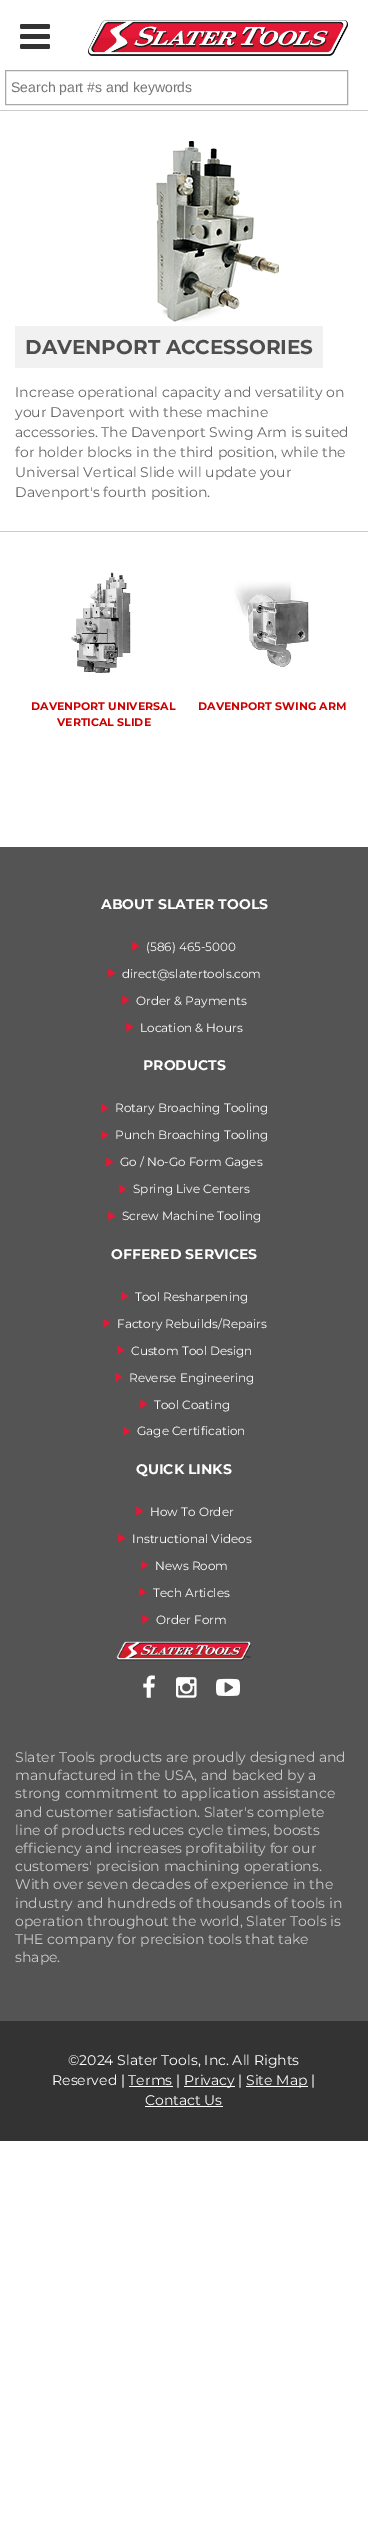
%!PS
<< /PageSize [368 2522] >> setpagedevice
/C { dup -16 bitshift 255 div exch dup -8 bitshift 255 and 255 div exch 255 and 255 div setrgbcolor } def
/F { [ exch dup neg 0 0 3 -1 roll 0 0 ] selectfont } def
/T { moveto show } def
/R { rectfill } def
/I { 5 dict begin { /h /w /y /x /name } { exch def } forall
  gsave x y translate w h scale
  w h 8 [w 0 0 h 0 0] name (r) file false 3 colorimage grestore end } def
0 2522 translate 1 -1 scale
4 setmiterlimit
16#FFFFFF C
0 0 368 2522 R
(1.rgb) 20 24 30 25 I
(2.rgb) 88 20 260 36 I
16#A9A9A9 C
5.5 70.5 342 34 rectstroke
/LiberationSans-Regular 14 F
16#757575 C
(Search part #s and keywords) 11 92 T
16#CCCCCC C
0 110 368 1 R
0 531 368 1 R
(3.rgb) 156 141 123 181 I
16#F1F1F1 C
15 326 308 42 R
/Montserrat-Bold 20 F
16#4E4E4E C
(DAVENPORT ACCESSORIES) 25 354 T
/Montserrat-Regular 14 F
16#666666 C
(Increase operational capacity and versatility on) 15 397 T
(your Davenport with these machine) 15 417 T
(accessories. The Davenport Swing Arm is suited) 15 437 T
(for holder blocks in the third position, while the) 15 457 T
(Universal Vertical Slide will update your) 15 477 T
(Davenport's fourth position.) 15 497 T
(4.rgb) 71 572 60 101 I
/Montserrat-Bold 11 F
16#CB0000 C
(DAVENPORT UNIVERSAL) 31 710 T
(VERTICAL SLIDE) 57 726 T
(5.rgb) 234 581 75 86 I
(DAVENPORT SWING ARM) 198 710 T
16#545454 C
0 847 368 1174 R
/Montserrat-Bold 14 F
16#FFFFFF C
(ABOUT SLATER TOOLS) 101 909 T
(6.rgb) 132 941 8 10 I
/Montserrat-Regular 12 F
(\(586\) 465-5000) 146 951 T
(6.rgb) 108 968 8 10 I
(direct@slatertools.com) 122 978 T
(6.rgb) 122 995 8 10 I
(Order & Payments) 136 1005 T
(6.rgb) 126 1022 8 10 I
(Location & Hours) 140 1032 T
/Montserrat-Bold 14 F
(PRODUCTS) 143 1070 T
(6.rgb) 101 1103 8 10 I
/Montserrat-Regular 12 F
(Rotary Broaching Tooling) 115 1112 T
(6.rgb) 101 1130 8 10 I
(Punch Broaching Tooling) 115 1139 T
(6.rgb) 106 1157 8 10 I
(Go / No-Go Form Gages) 120 1166 T
(6.rgb) 119 1184 8 10 I
(Spring Live Centers) 133 1193 T
(6.rgb) 108 1211 8 10 I
(Screw Machine Tooling) 122 1220 T
/Montserrat-Bold 14 F
(OFFERED SERVICES) 111 1259 T
(6.rgb) 121 1291 8 10 I
/Montserrat-Regular 12 F
(Tool Resharpening) 135 1301 T
(6.rgb) 103 1318 8 10 I
(Factory Rebuilds/Repairs) 117 1328 T
(6.rgb) 117 1345 8 10 I
(Custom Tool Design) 131 1355 T
(7.rgb) 115 1372 8 10 I
(Reverse Engineering) 129 1382 T
(7.rgb) 140 1399 8 10 I
(Tool Coating) 154 1409 T
(6.rgb) 123 1426 8 10 I
(Gage Certification) 137 1435 T
/Montserrat-Bold 14 F
(QUICK LINKS) 136 1474 T
(6.rgb) 136 1506 8 10 I
/Montserrat-Regular 12 F
(How To Order) 150 1516 T
(8.rgb) 118 1533 8 10 I
(Instructional Videos) 132 1543 T
(9.rgb) 141 1560 8 10 I
(News Room) 155 1570 T
(6.rgb) 139 1587 8 10 I
(Tech Articles) 153 1597 T
(6.rgb) 142 1614 8 10 I
(Order Form) 156 1624 T
(10.rgb) 116 1641 135 20 I
(11.rgb) 143 1675 12 23 I
(12.rgb) 176 1677 21 21 I
(13.rgb) 216 1678 24 18 I
/Montserrat-Regular 14 F
16#CCCCCC C
(Slater Tools products are proudly designed and) 15 1762 T
(manufactured in the USA, and backed by a) 15 1780 T
(strong commitment to application assistance) 15 1798 T
(and customer satisfaction. Slater's complete) 15 1817 T
(line of products reduces cycle times, boosts) 15 1835 T
(efficiency and increases profitability for our) 15 1853 T
(customers' precision machining operations.) 15 1871 T
(With over seven decades of experience in the) 15 1889 T
(industry and hundreds of thousands of tools in) 15 1908 T
(operation throughout the world, Slater Tools is) 15 1926 T
(THE company for precision tools that take) 15 1944 T
(shape.) 15 1962 T
16#333333 C
0 2021 368 120 R
16#FFFFFF C
(©2024 Slater Tools, Inc. All Rights) 68 2065 T
(Reserved | Terms |) 52 2085 T
184 2086 51 1 R
(Privacy |) 184 2085 T
246 2086 62 1 R
(Site Map |) 246 2085 T
129 2086 44 1 R
(Contact Us) 145 2105 T
145 2106 78 1 R
showpage
